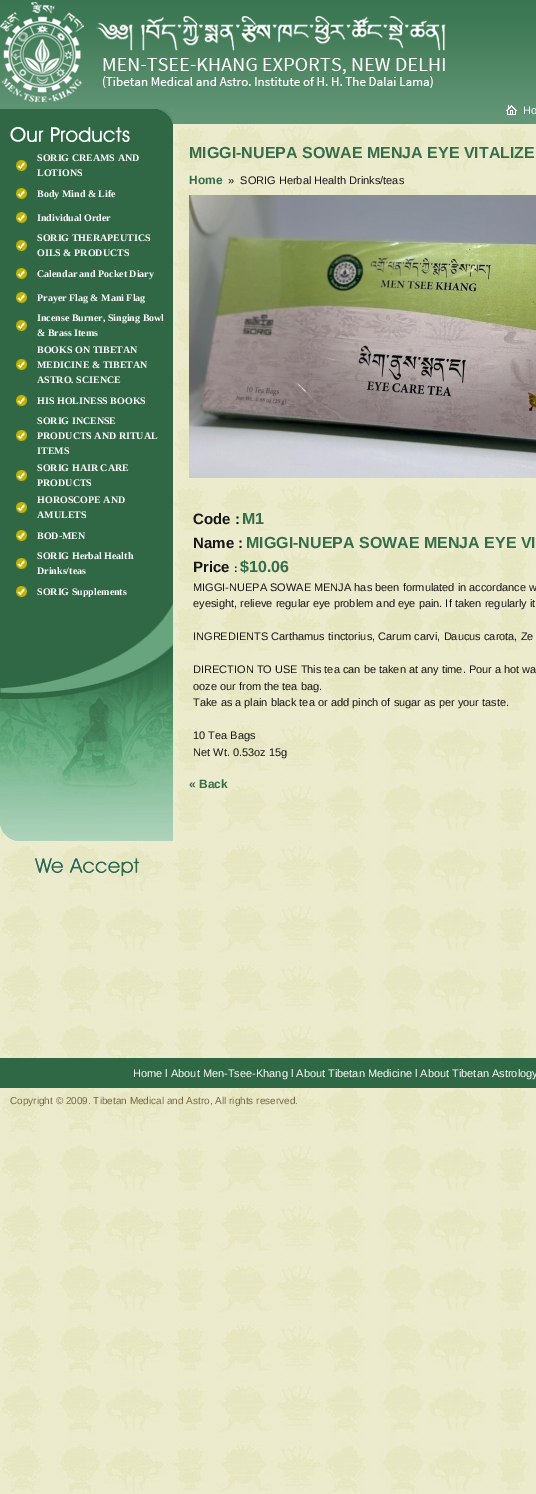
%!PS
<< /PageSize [536 1494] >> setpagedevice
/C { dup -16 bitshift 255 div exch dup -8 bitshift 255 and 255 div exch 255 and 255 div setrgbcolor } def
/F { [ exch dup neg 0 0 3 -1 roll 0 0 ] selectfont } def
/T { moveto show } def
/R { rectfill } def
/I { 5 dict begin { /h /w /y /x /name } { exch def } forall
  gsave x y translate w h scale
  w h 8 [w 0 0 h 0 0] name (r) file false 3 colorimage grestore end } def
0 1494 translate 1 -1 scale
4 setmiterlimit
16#FFFFFF C
0 0 536 1494 R
(1.rgb) 0 124 536 1370 I
(2.rgb) 0 0 536 124 I
(3.rgb) 0 2 446 100 I
(4.rgb) 0 109 173 15 I
(5.rgb) 506 105 11 10 I
/LiberationSans-Regular 11 F
(Ho) 523 114 T
16#306845 C
0 124 173 480 R
(6.rgb) 10 127 120 15 I
(7.rgb) 16 160 11 11 I
/LiberationSerif-Bold 10 F
16#FFFFFF C
(SORIG CREAMS AND) 37 161 T
(LOTIONS) 37 176 T
(7.rgb) 16 188 11 11 I
(Body Mind & Life) 37 197 T
(7.rgb) 16 212 11 11 I
(Individual Order) 37 221 T
(7.rgb) 16 240 11 11 I
(SORIG THERAPEUTICS) 37 241 T
(OILS & PRODUCTS) 37 256 T
(7.rgb) 16 268 11 11 I
(Calendar and Pocket Diary) 37 277 T
(7.rgb) 16 292 11 11 I
(Prayer Flag & Mani Flag) 37 301 T
(7.rgb) 16 320 11 11 I
(Incense Burner, Singing Bowl) 37 321 T
(& Brass Items) 37 336 T
(7.rgb) 16 359 11 11 I
(BOOKS ON TIBETAN) 37 353 T
(MEDICINE & TIBETAN) 37 368 T
(ASTRO. SCIENCE) 37 383 T
(7.rgb) 16 395 11 11 I
(HIS HOLINESS BOOKS) 37 404 T
(7.rgb) 16 430 11 11 I
(SORIG INCENSE) 37 424 T
(PRODUCTS AND RITUAL) 37 439 T
(ITEMS) 37 454 T
(7.rgb) 16 470 11 11 I
(SORIG HAIR CARE) 37 471 T
(PRODUCTS) 37 486 T
(7.rgb) 16 502 11 11 I
(HOROSCOPE AND) 37 503 T
(AMULETS) 37 518 T
(7.rgb) 16 530 11 11 I
(BOD-MEN) 37 539 T
(7.rgb) 16 558 11 11 I
(SORIG Herbal Health) 37 559 T
(Drinks/teas) 37 574 T
(7.rgb) 16 586 11 11 I
(SORIG Supplements) 37 595 T
(8.rgb) 0 604 173 237 I
(9.rgb) 34 858 106 19 I
/LiberationSans-Bold 16 F
16#356D4B C
(MIGGI-NUEPA SOWAE MENJA EYE VITALIZE) 189 158 T
/LiberationSans-Bold 12 F
(Home) 189 184 T
/LiberationSans-Regular 11 F
16#161616 C
(»  SORIG Herbal Health Drinks/teas) 228 184 T
(10.rgb) 189 195 347 283 I
/LiberationSans-Bold 15 F
(Code :) 193 524 T
/LiberationSans-Bold 16 F
16#356D4B C
(M1) 242 524 T
/LiberationSans-Bold 15 F
16#161616 C
(Name :) 193 548 T
/LiberationSans-Bold 16 F
16#356D4B C
(MIGGI-NUEPA SOWAE MENJA EYE VI) 246 548 T
/LiberationSans-Bold 15 F
16#161616 C
(Price) 193 572 T
/LiberationSans-Bold 11 F
(:) 234 572 T
/LiberationSans-Bold 16 F
16#356D4B C
($10.06) 240 572 T
/LiberationSans-Regular 11 F
16#161616 C
(MIGGI-NUEPA SOWAE MENJA has been formulated in accordance w) 193 591 T
(eyesight, relieve regular eye problem and eye pain. If taken regularly it) 193 607 T
(INGREDIENTS Carthamus tinctorius, Carum carvi, Daucus carota, Ze) 193 640 T
(DIRECTION TO USE This tea can be taken at any time. Pour a hot wa) 193 673 T
(ooze our from the tea bag.) 193 690 T
(Take as a plain black tea or add pinch of sugar as per your taste.) 193 706 T
(10 Tea Bags) 193 739 T
(Net Wt. 0.53oz 15g) 193 756 T
/LiberationSans-Bold 12 F
16#356D4B C
(« Back) 189 788 T
16#2F6845 C
0 1058 536 30 R
/LiberationSans-Regular 11 F
16#FFFFFF C
(Home l About Men-Tsee-Khang l About Tibetan Medicine l About Tibetan Astrology) 133 1077 T
/LiberationSans-Regular 10 F
16#776746 C
(Copyright © 2009. Tibetan Medical and Astro, All rights reserved.) 10 1104 T
showpage
